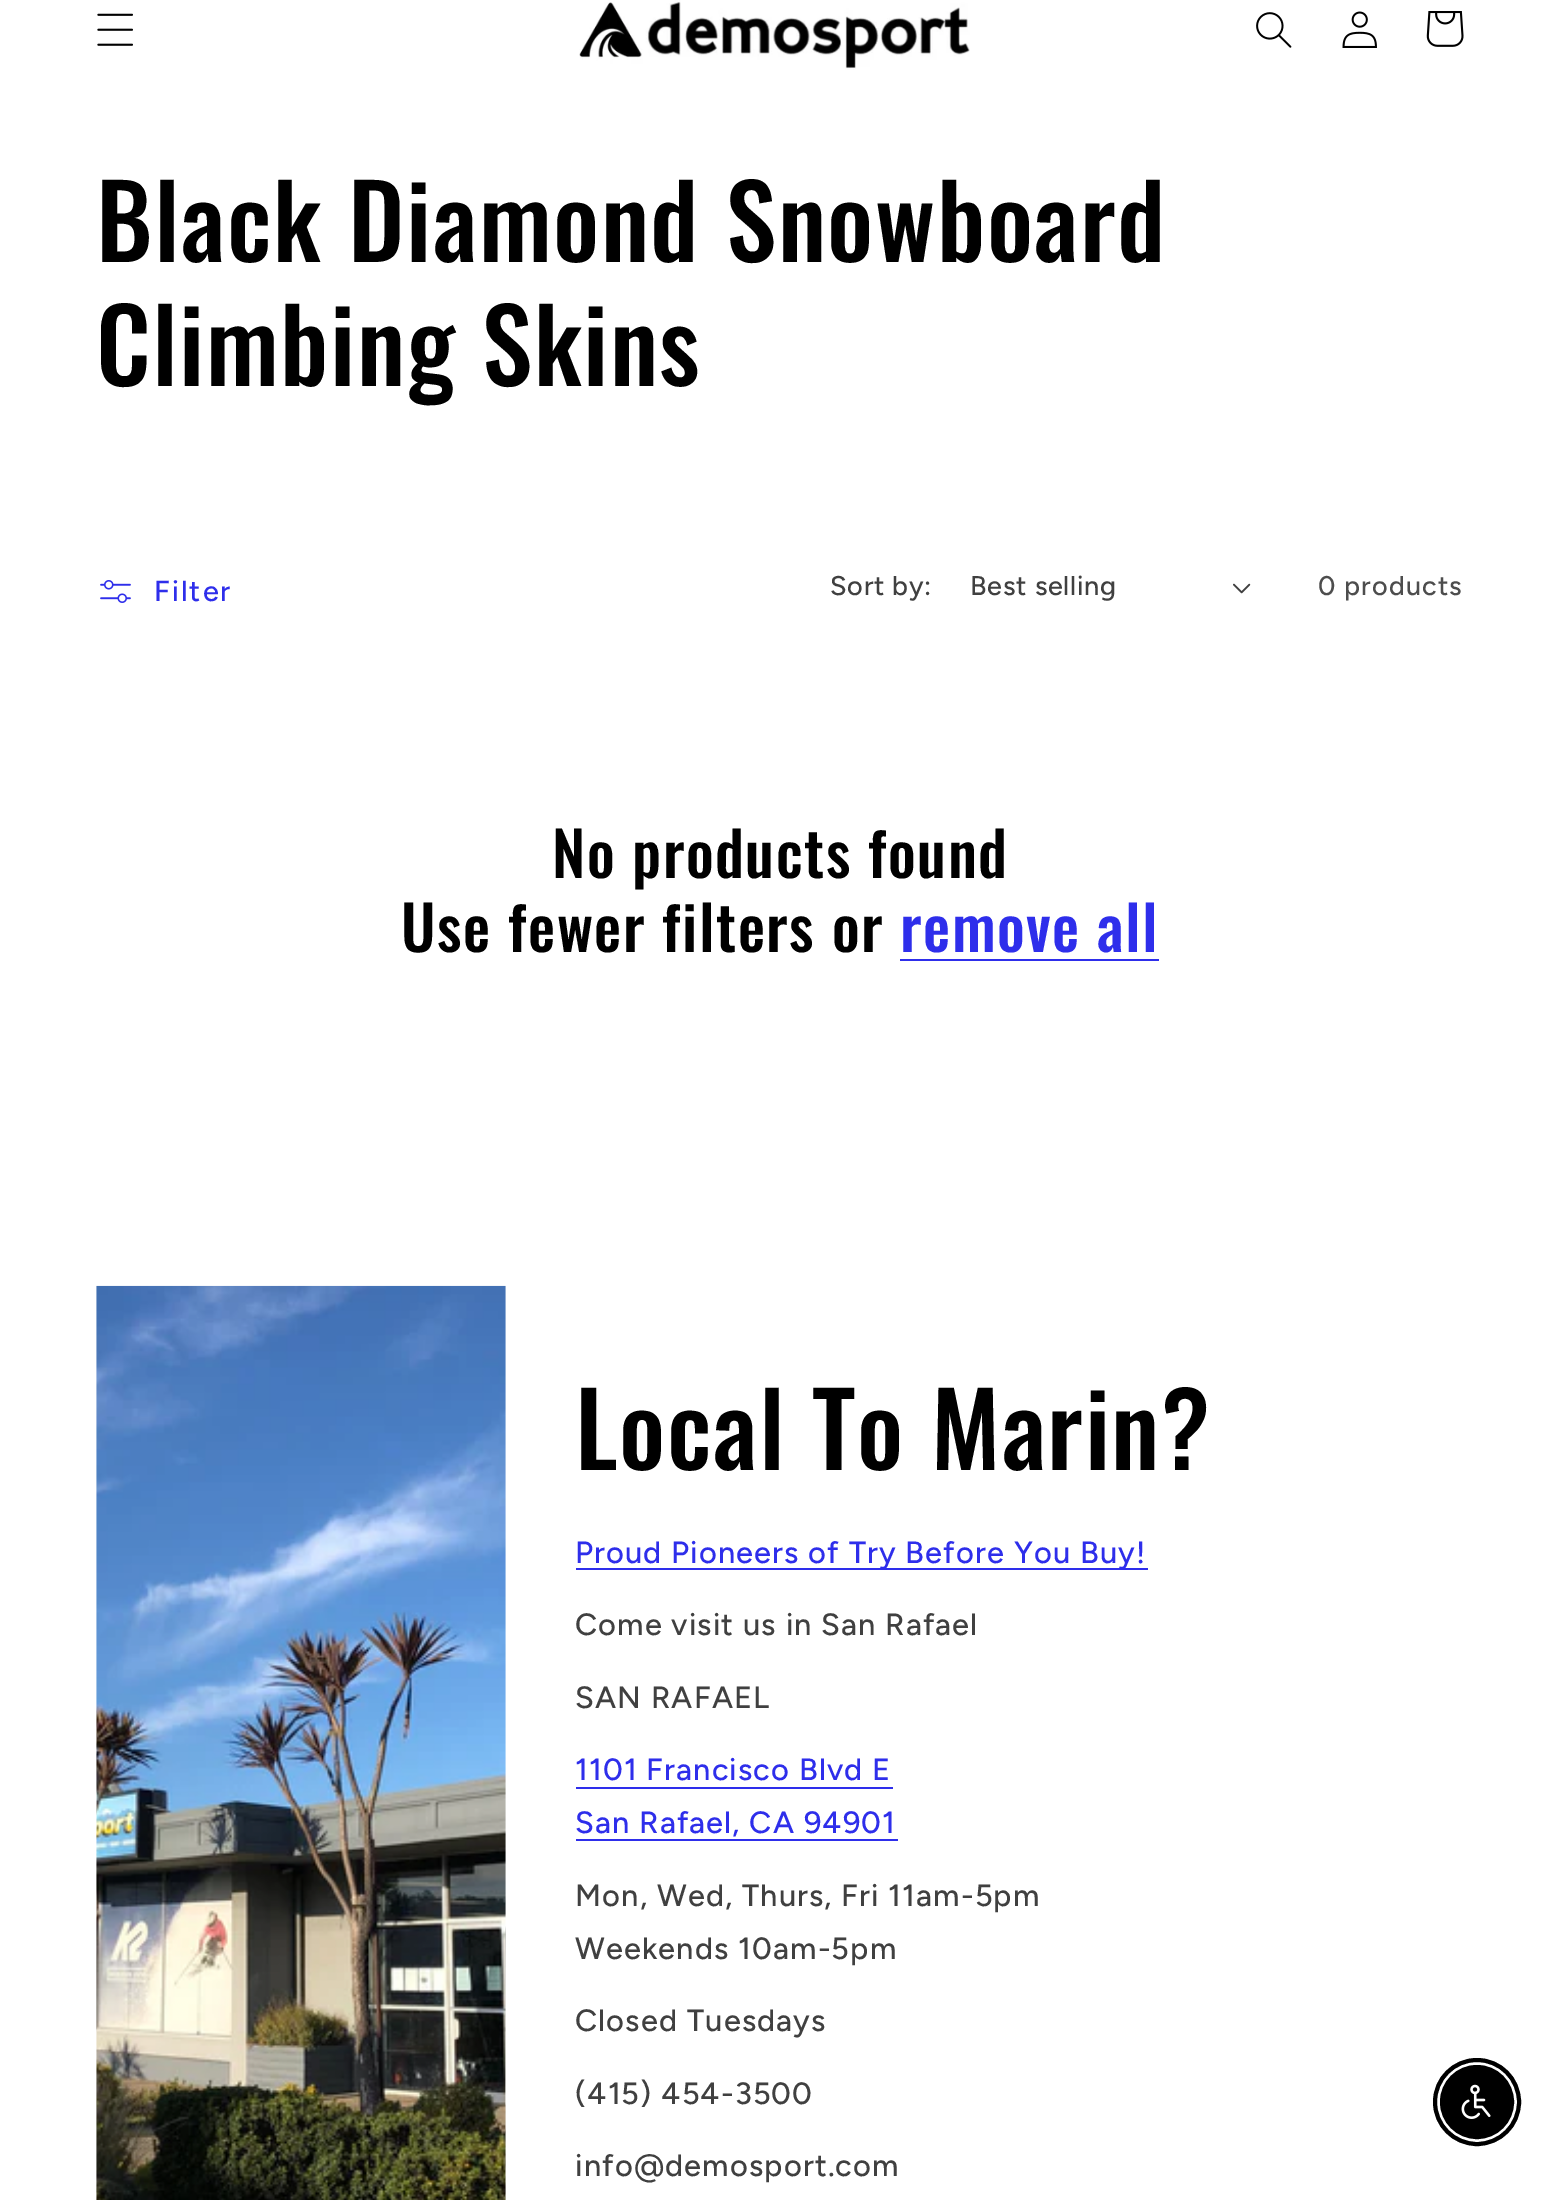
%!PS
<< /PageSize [1559 2200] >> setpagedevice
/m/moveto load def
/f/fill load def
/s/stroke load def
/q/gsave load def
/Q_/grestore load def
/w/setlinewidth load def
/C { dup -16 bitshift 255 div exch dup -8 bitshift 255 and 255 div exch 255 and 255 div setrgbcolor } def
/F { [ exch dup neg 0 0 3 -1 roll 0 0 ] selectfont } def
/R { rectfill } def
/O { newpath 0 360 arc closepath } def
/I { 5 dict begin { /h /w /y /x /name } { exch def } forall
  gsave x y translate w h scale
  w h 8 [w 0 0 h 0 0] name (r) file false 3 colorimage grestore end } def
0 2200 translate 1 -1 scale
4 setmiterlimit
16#FFFFFF C
0 0 1559 2200 R
(1.rgb) 97 13 36 33 I
(2.rgb) 579 0 391 70 I
(3.rgb) 1256 12 36 36 I
(4.rgb) 1342 11 35 37 I
(5.rgb) 1426 11 38 36 I
/Oswald-Medium 101.5 F
16#000000 C
96 262 m 1.5 0 (Black Diamond Snowboard) ashow
96 386 m 1.5 0 (Climbing Skins) ashow
(6.rgb) 100 580 31 23 I
/Figtree-Medium 29 F
16#2E2EEB C
154 601 m 2 0 (Filter) ashow
/Figtree-Medium 27 F
16#404040 C
830 595 m .75 0 (Sort by:) ashow
970 595 m .75 0 (Best selling) ashow
(7.rgb) 1233 583 18 11 I
16#4D4D4D C
1318 595 m 1.15 0 (0 products) ashow
/Oswald-Medium 61 F
16#000000 C
552 878 m 1.5 0 (No products found) ashow
401 952 m 1.5 0 (Use fewer filters or) ashow
16#2E2EEB C
900 952 m 1.5 0 (remove all) ashow
900 959 259 2 R
(8.rgb) 96 1285 410 915 I
/Oswald-Medium 101.5 F
16#000000 C
575 1470 m 1.5 0 (Local To Marin?) ashow
16#2E2EEB C
576 1568 572 2 R
/Figtree-Medium 30.75 F
575 1563 m 1.15 0 (Proud Pioneers of Try Before You Buy!) ashow
16#404040 C
575 1635 m 1.15 0 (Come visit us in San Rafael) ashow
575 1708 m 1.15 0 (SAN RAFAEL) ashow
16#2E2EEB C
575 1780 m 1.15 0 (1101 Francisco Blvd E) ashow
576 1787 317 2 R
575 1833 m 1.15 0 (San Rafael, CA 94901) ashow
576 1839 322 2 R
16#404040 C
575 1906 m 1.15 0 (Mon, Wed, Thurs, Fri 11am-5pm) ashow
575 1959 m 1.15 0 (Weekends 10am-5pm) ashow
575 2031 m 1.15 0 (Closed Tuesdays) ashow
575 2104 m 1.15 0 (\(415\) 454-3500) ashow
575 2176 m 1.15 0 (info@demosport.com) ashow
16#000000 C
4 w
1477 2102 42 O s
1477 2102 36 O q f Q_
2 w
s
(9.rgb) 1461 2084 30 35 I
showpage
